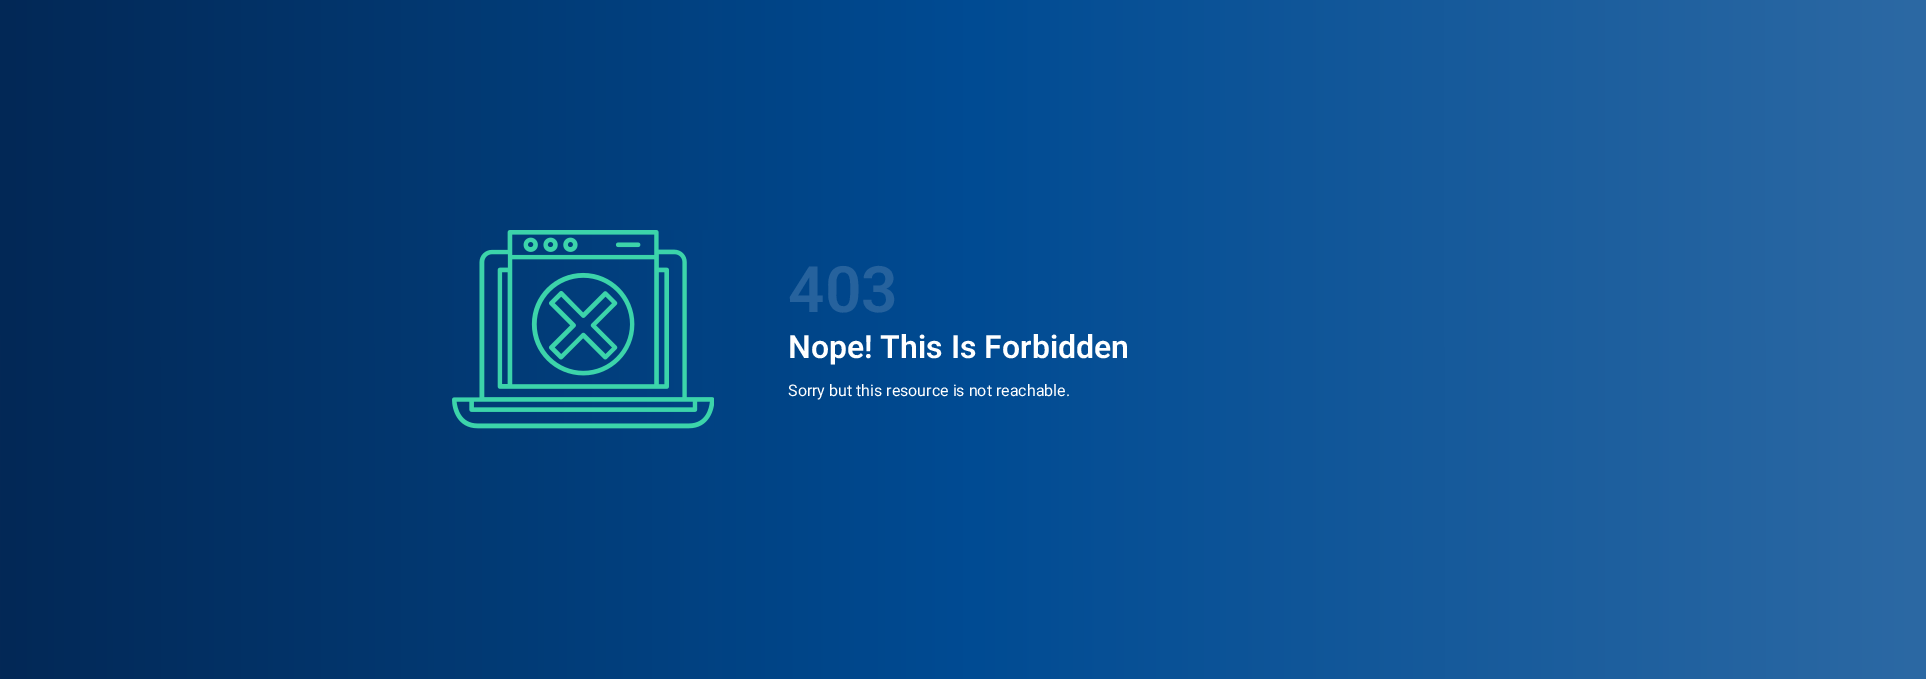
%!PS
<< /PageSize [1926 679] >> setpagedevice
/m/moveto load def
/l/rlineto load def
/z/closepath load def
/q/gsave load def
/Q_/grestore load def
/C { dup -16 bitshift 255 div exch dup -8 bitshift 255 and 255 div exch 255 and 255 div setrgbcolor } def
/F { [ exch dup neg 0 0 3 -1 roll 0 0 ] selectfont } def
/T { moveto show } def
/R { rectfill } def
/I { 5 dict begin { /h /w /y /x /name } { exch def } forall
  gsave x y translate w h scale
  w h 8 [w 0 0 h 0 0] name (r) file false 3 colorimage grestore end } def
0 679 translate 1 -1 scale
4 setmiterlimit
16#FFFFFF C
0 0 1926 679 R
q 0 0 m 1926 0 l 0 679 l -1926 0 l z clip newpath
<< /ShadingType 2 /ColorSpace /DeviceRGB /Coords [0 340 1926 339] /Extend [true true] /Function << /FunctionType 3 /Domain [0 1] /Functions [<< /FunctionType 2 /Domain [0 1] /C0 [.012 .157 .337] /C1 [0 .294 .576] /N 1 >> << /FunctionType 2 /Domain [0 1] /C0 [0 .294 .576] /C1 [.173 .412 .643] /N 1 >>] /Bounds [.5] /Encode [0 1 0 1] >> >> shfill Q_
(1.rgb) 452 230 262 199 I
/Roboto-SemiBold 64 F
16#26629D C
(403) 788 312 T
/Roboto-SemiBold 32 F
16#FFFFFF C
(Nope! This Is Forbidden) 788 358 T
/Roboto-Regular 16 F
(Sorry but this resource is not reachable.) 788 396 T
showpage
